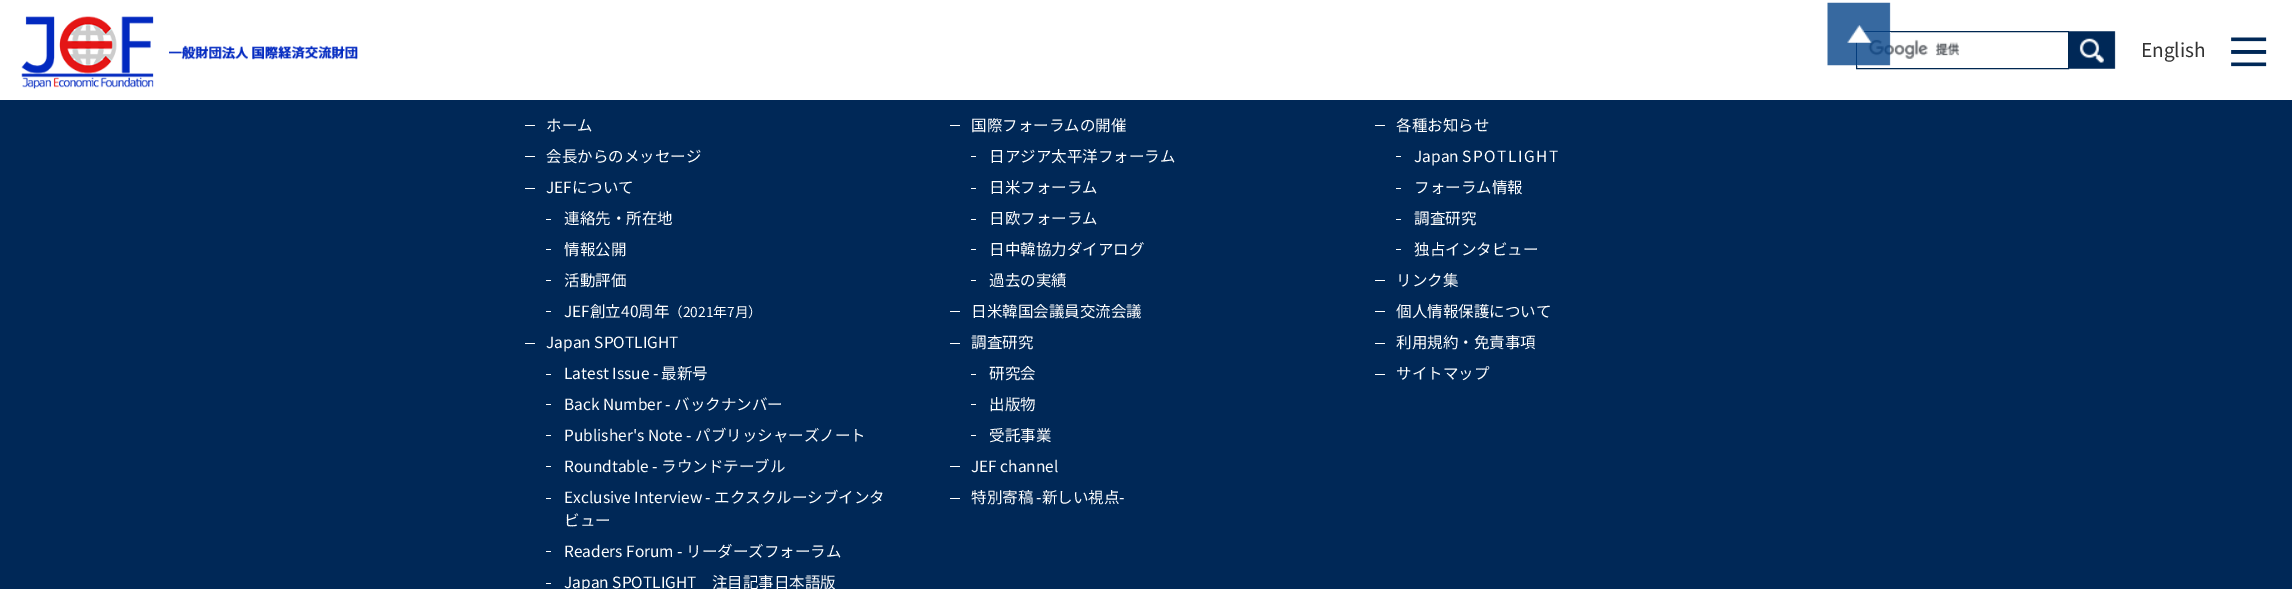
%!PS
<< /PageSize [2292 589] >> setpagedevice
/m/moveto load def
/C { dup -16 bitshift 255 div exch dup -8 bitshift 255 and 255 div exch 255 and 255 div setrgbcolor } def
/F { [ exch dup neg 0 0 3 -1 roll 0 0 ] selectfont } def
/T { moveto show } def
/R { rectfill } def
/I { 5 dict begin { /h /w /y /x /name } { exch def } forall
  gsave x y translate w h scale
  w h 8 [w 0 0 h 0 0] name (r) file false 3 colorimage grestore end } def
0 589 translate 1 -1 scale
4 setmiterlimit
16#002857 C
0 0 2292 589 R
16#FFFFFF C
0 0 2292 100 R
(1.rgb) 21 16 337 73 I
(2.rgb) 2231 37 36 30 I
(3.rgb) 1868 39 92 20 I
16#002751 C
1856.5 31.5 212 37 rectstroke
(4.rgb) 2069 31 47 38 I
/NotoSansJP-Regular 19 F
16#333333 C
(English) 2141 57 T
(5.rgb) 1827 2 64 64 I
16#FFFFFF C
525 125 10 1 R
/NotoSansJP-Regular 15.5 F
(ホーム) 546 131 T
525 156 10 1 R
(会長からのメッセージ) 546 162 T
525 188 10 1 R
(JEFについて) 546 193 T
546 219 5 1 R
(連絡先・所在地) 564 224 T
546 249 5 1 R
(情報公開) 564 255 T
546 280 5 1 R
(活動評価) 564 286 T
546 311 5 1 R
(JEF創立40周年) 564 317 T
/NotoSansJP-Regular 13.75 F
(（2021年7月）) 669 317 T
525 343 10 1 R
/NotoSansJP-Regular 15.5 F
(Japan SPOTLIGHT) 546 348 T
546 374 5 1 R
(Latest Issue - 最新号) 564 379 T
546 404 5 1 R
(Back Number - バックナンバー) 564 410 T
546 435 5 1 R
(Publisher's Note - パブリッシャーズノート) 564 441 T
546 466 5 1 R
(Roundtable - ラウンドテーブル) 564 472 T
546 498 5 1 R
(Exclusive Interview - エクスクルーシブインタ) 564 503 T
(ビュー) 564 526 T
546 551 5 1 R
(Readers Forum - リーダーズフォーラム) 564 557 T
546 583 5 1 R
(Japan SPOTLIGHT　注目記事日本語版) 564 588 T
950 125 10 1 R
(国際フォーラムの開催) 971 131 T
971 156 5 1 R
(日アジア太平洋フォーラム) 989 162 T
971 188 5 1 R
(日米フォーラム) 989 193 T
971 219 5 1 R
(日欧フォーラム) 989 224 T
971 249 5 1 R
(日中韓協力ダイアログ) 989 255 T
971 280 5 1 R
(過去の実績) 989 286 T
950 311 10 1 R
(日米韓国会議員交流会議) 971 317 T
950 343 10 1 R
(調査研究) 971 348 T
971 374 5 1 R
(研究会) 989 379 T
971 404 5 1 R
(出版物) 989 410 T
971 435 5 1 R
(受託事業) 989 441 T
950 466 10 1 R
(JEF channel) 971 472 T
950 498 10 1 R
(特別寄稿 -新しい視点-) 971 503 T
1375 125 10 1 R
(各種お知らせ) 1396 131 T
1396 156 5 1 R
(Japan) 1414 162 T
1462 162 m 1.5 0 (SPOTLIGHT) ashow
1396 188 5 1 R
(フォーラム情報) 1414 193 T
1396 219 5 1 R
(調査研究) 1414 224 T
1396 249 5 1 R
(独占インタビュー) 1414 255 T
1375 280 10 1 R
(リンク集) 1396 286 T
1375 311 10 1 R
(個人情報保護について) 1396 317 T
1375 343 10 1 R
(利用規約・免責事項) 1396 348 T
1375 374 10 1 R
(サイトマップ) 1396 379 T
showpage
